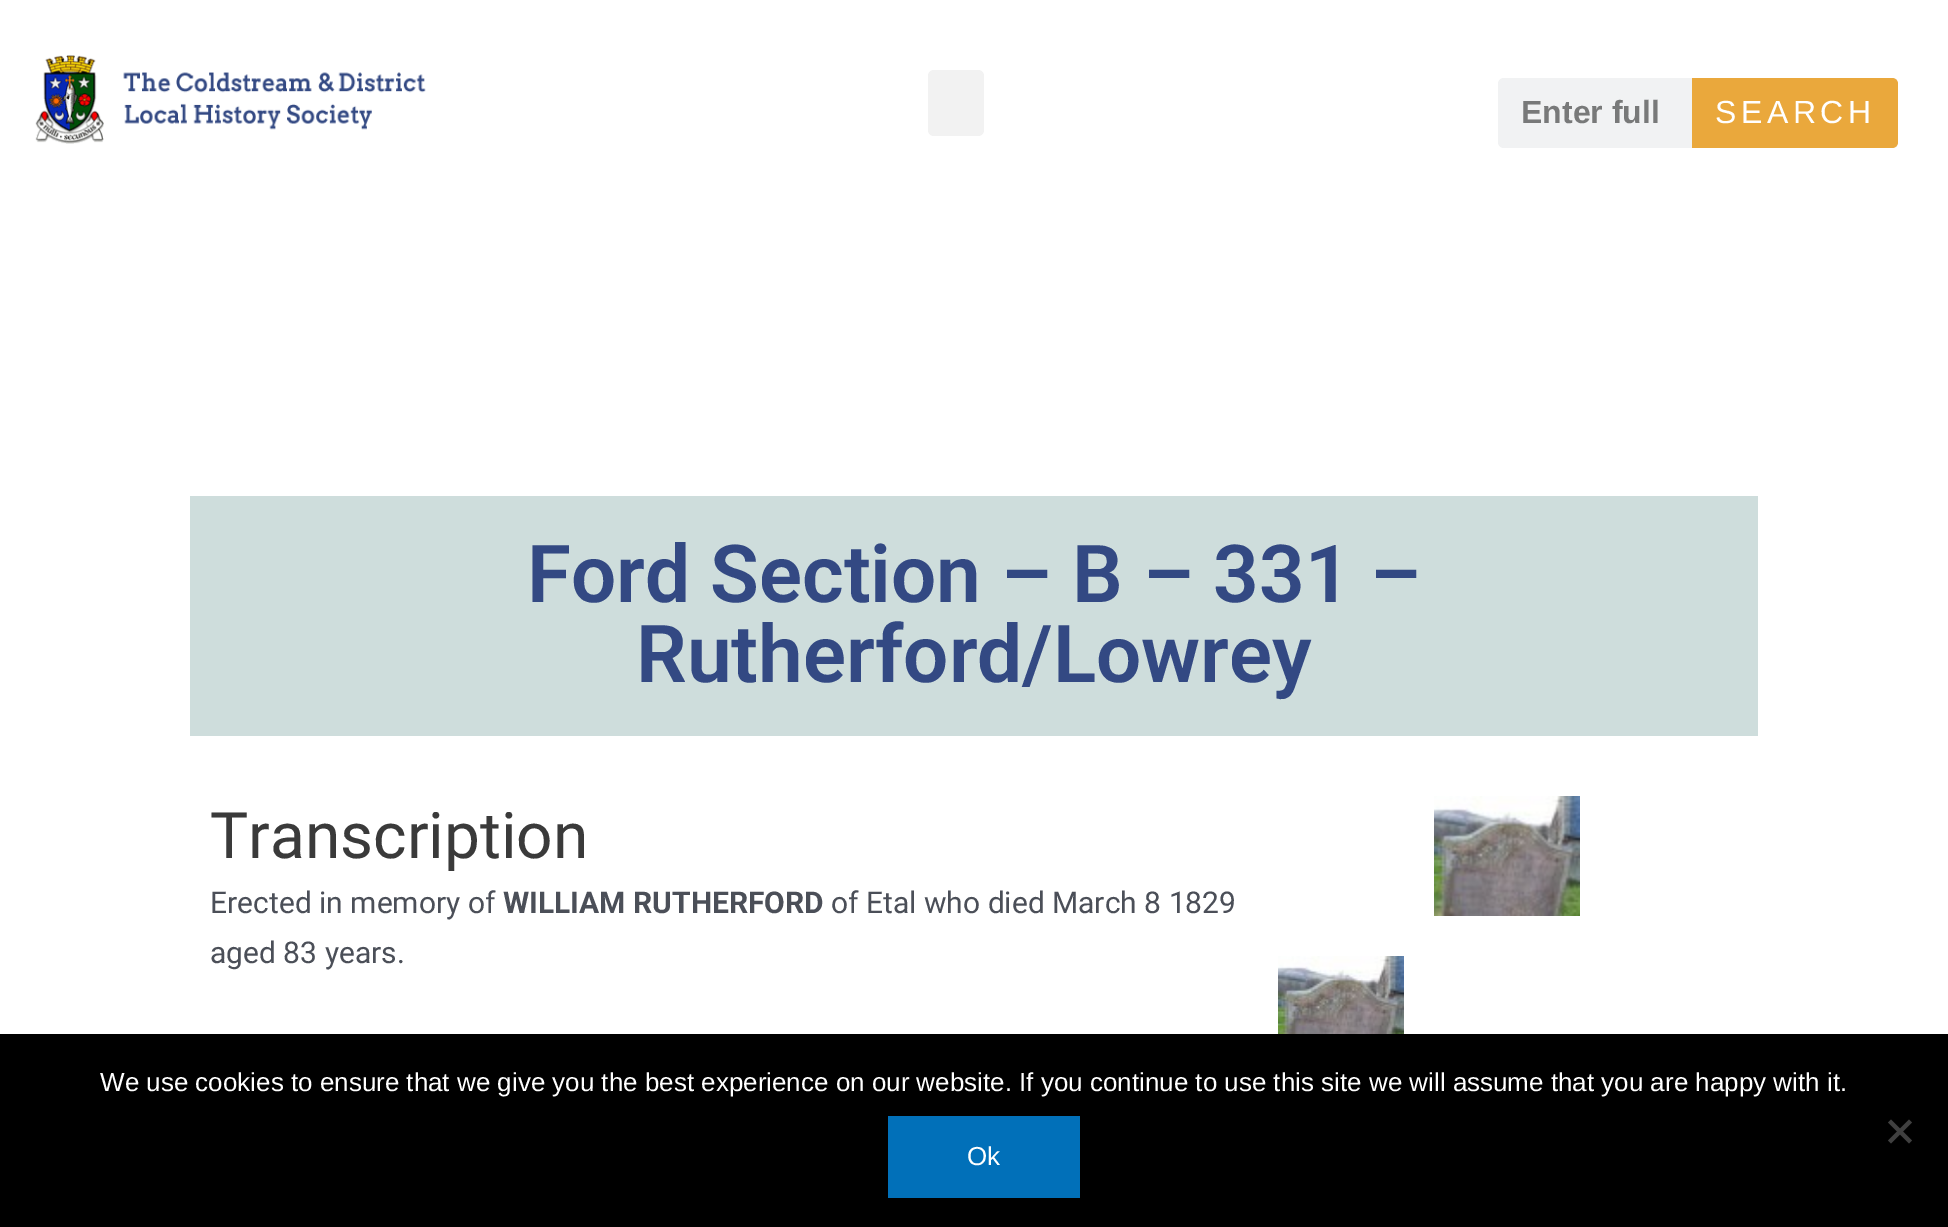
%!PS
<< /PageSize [1948 1227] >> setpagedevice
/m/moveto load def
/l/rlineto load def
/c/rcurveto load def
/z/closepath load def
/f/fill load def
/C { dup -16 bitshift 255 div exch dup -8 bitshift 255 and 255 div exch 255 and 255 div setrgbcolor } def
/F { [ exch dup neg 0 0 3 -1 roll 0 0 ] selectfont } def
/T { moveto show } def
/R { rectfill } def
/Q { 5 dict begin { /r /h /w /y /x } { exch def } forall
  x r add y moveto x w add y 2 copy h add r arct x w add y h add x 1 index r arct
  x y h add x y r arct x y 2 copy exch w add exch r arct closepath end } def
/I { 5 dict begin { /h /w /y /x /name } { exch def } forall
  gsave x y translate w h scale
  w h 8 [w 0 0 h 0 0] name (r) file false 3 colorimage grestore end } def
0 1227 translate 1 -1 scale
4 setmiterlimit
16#FFFFFF C
0 0 1948 1227 R
(1.rgb) 35 55 391 89 I
16#F2F2F2 C
928 70 56 66 6 Q f
16#F1F2F3 C
1498 78 400 70 6 Q f
/LiberationSans-Bold 32 F
16#787979 C
(Enter full) 1521 123 T
16#EAA83C C
1692 78 m 200 0 l 3.5 0 6 2.5 6 6 c 0 58 l 0 3.5 -2.5 6 -6 6 c -200 0 l z f
/LiberationSans-Regular 32 F
16#FFFFFF C
1715 123 m 4.5 0 (SEARCH) ashow
16#CEDDDC C
190 496 1568 240 R
/Roboto-SemiBold 80 F
16#334983 C
(Ford Section – B – 331 –) 527 602 T
(Rutherford/Lowrey) 636 682 T
/Roboto-Regular 64 F
16#3A3A3A C
(Transcription) 210 858 T
/Roboto-Regular 30 F
16#4B4F58 C
(Erected in memory of) 210 913 T
/Roboto-Bold 30 F
(WILLIAM RUTHERFORD) 503 913 T
/Roboto-Regular 30 F
(of Etal who died March 8 1829) 831 913 T
(aged 83 years.) 210 963 T
(2.rgb) 1434 796 146 120 I
(3.rgb) 1278 956 126 78 I
16#000000 C
0 1034 1948 193 R
/LiberationSans-Regular 26 F
16#FFFFFF C
(We use cookies to ensure that we give you the best experience on our website. If you continue to use this site we will assume that you are happy with it.) 100 1091 T
16#404040 C
1909 1119.5 m 3 3 l -21 21 l -3 -3 l z f
1888 1122.5 m 3 -3 l 21 21 l -3 3 l z f
16#0170B9 C
888 1116 192 82 R
16#FFFFFF C
(Ok) 967 1165 T
showpage
